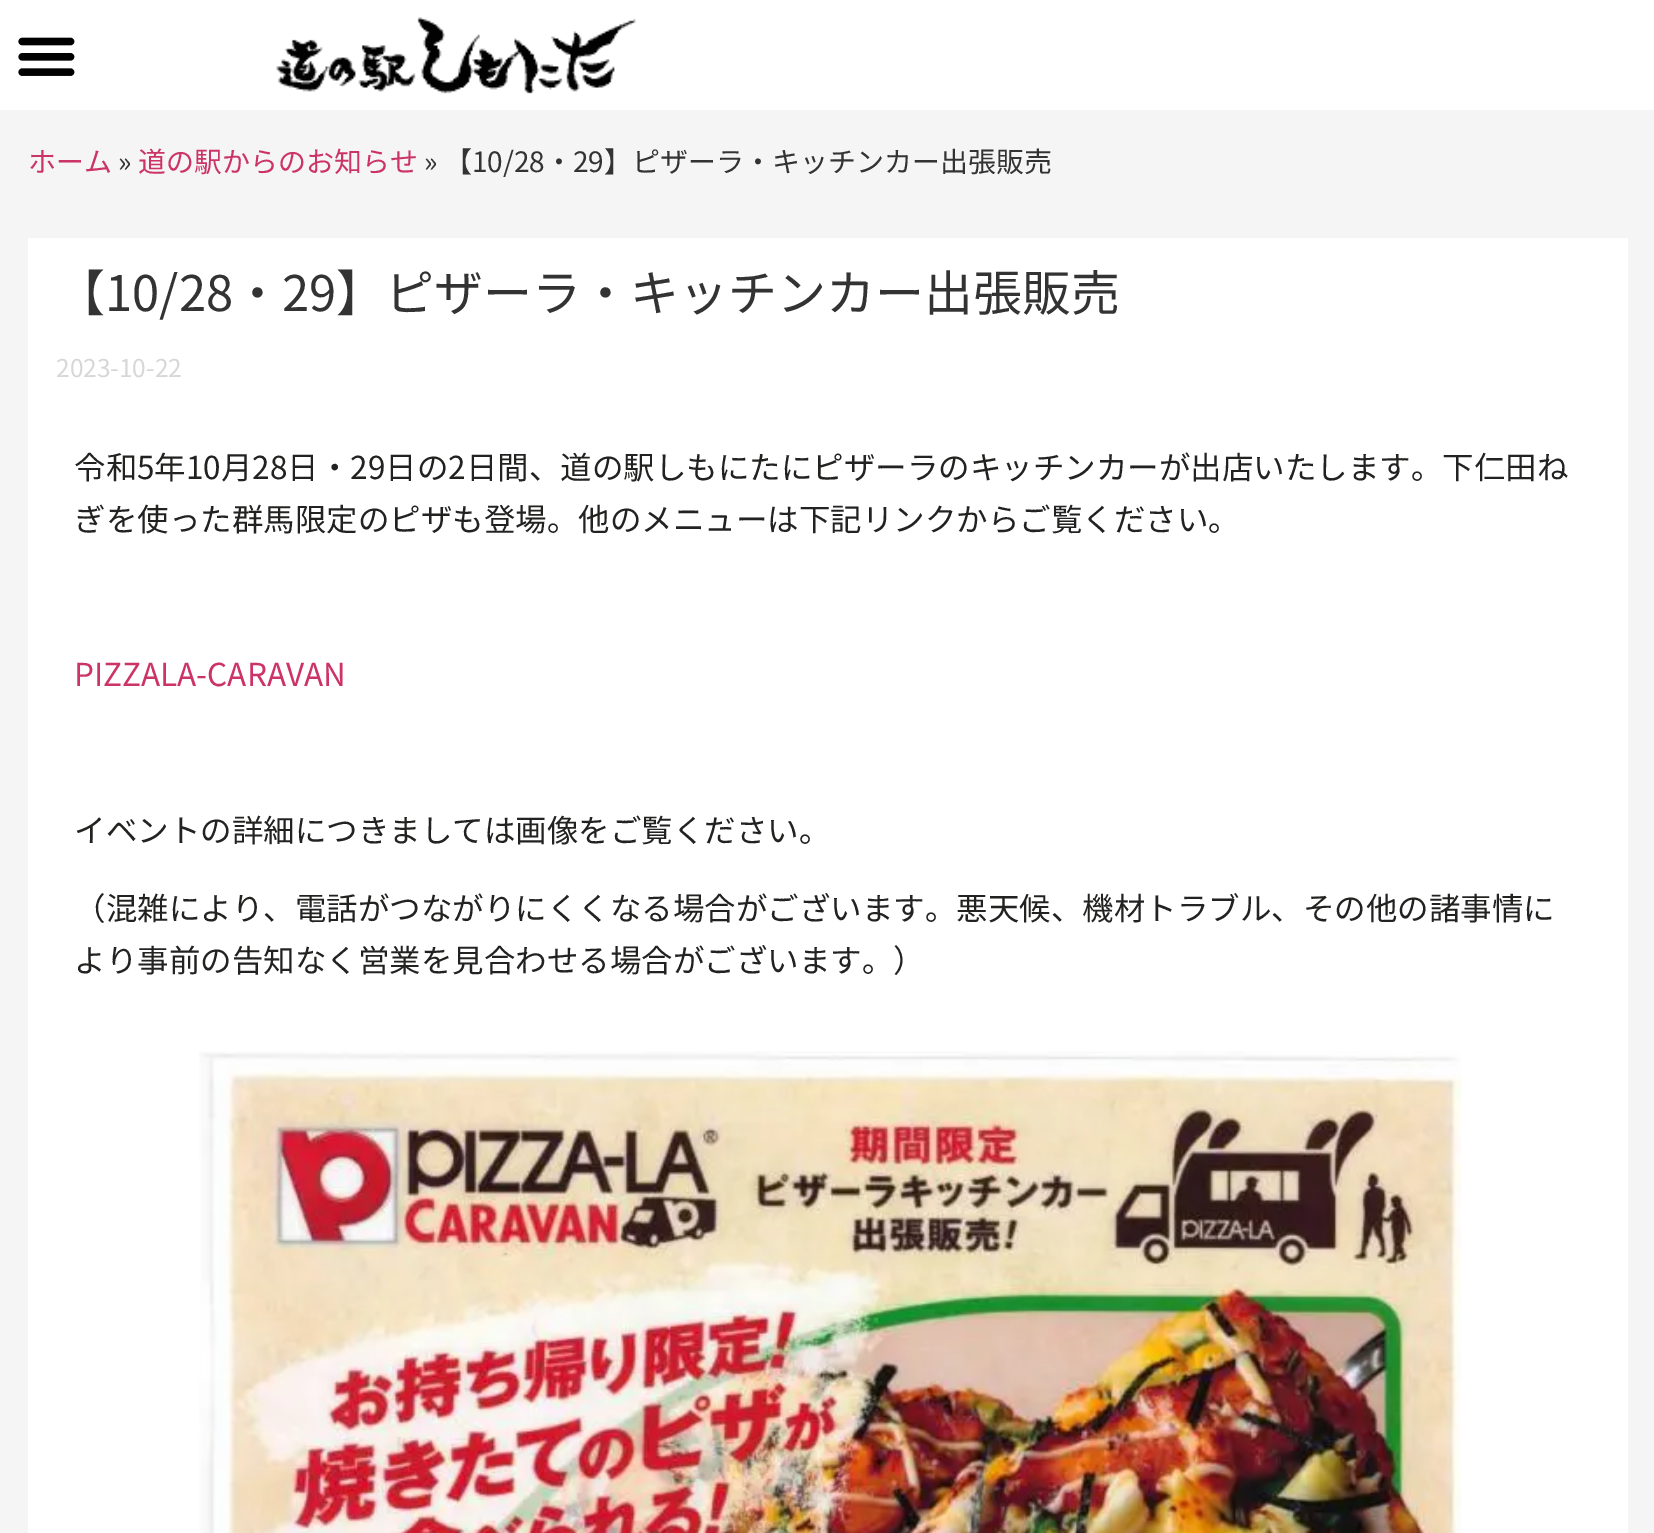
%!PS
<< /PageSize [1654 1533] >> setpagedevice
/C { dup -16 bitshift 255 div exch dup -8 bitshift 255 and 255 div exch 255 and 255 div setrgbcolor } def
/F { [ exch dup neg 0 0 3 -1 roll 0 0 ] selectfont } def
/T { moveto show } def
/R { rectfill } def
/I { 5 dict begin { /h /w /y /x /name } { exch def } forall
  gsave x y translate w h scale
  w h 8 [w 0 0 h 0 0] name (r) file false 3 colorimage grestore end } def
0 1533 translate 1 -1 scale
4 setmiterlimit
16#F5F5F5 C
0 0 1654 1533 R
16#FFFFFF C
0 0 1654 110 R
(1.rgb) 18 37 57 39 I
(2.rgb) 276 17 360 77 I
/NotoSansJP-Regular 28 F
16#CC3366 C
(ホーム) 28 172 T
16#333333 C
(») 118 172 T
16#CC3366 C
(道の駅からのお知らせ) 138 172 T
16#333333 C
(» 【10/28・29】ピザーラ・キッチンカー出張販売) 424 172 T
16#FFFFFF C
28 238 1600 1295 R
/NotoSansJP-Regular 49 F
16#333333 C
(【10/28・29】ピザーラ・キッチンカー出張販売) 56 311 T
/NotoSansJP-Regular 24.5 F
16#D7D7D7 C
(2023-10-22) 56 377 T
/NotoSansJP-Regular 31.5 F
16#222321 C
(令和5年10月28日・29日の2日間、道の駅しもにたにピザーラのキッチンカーが出店いたします。下仁田ね) 74 479 T
(ぎを使った群馬限定のピザも登場。他のメニューは下記リンクからご覧ください。) 74 531 T
16#CC3366 C
(PIZZALA-CARAVAN) 74 686 T
16#222321 C
(イベントの詳細につきましては画像をご覧ください。) 74 842 T
(（混雑により、電話がつながりにくくなる場合がございます。悪天候、機材トラブル、その他の諸事情に) 74 920 T
(より事前の告知なく営業を見合わせる場合がございます。）) 74 972 T
(3.rgb) 199 1051 1263 482 I
showpage
